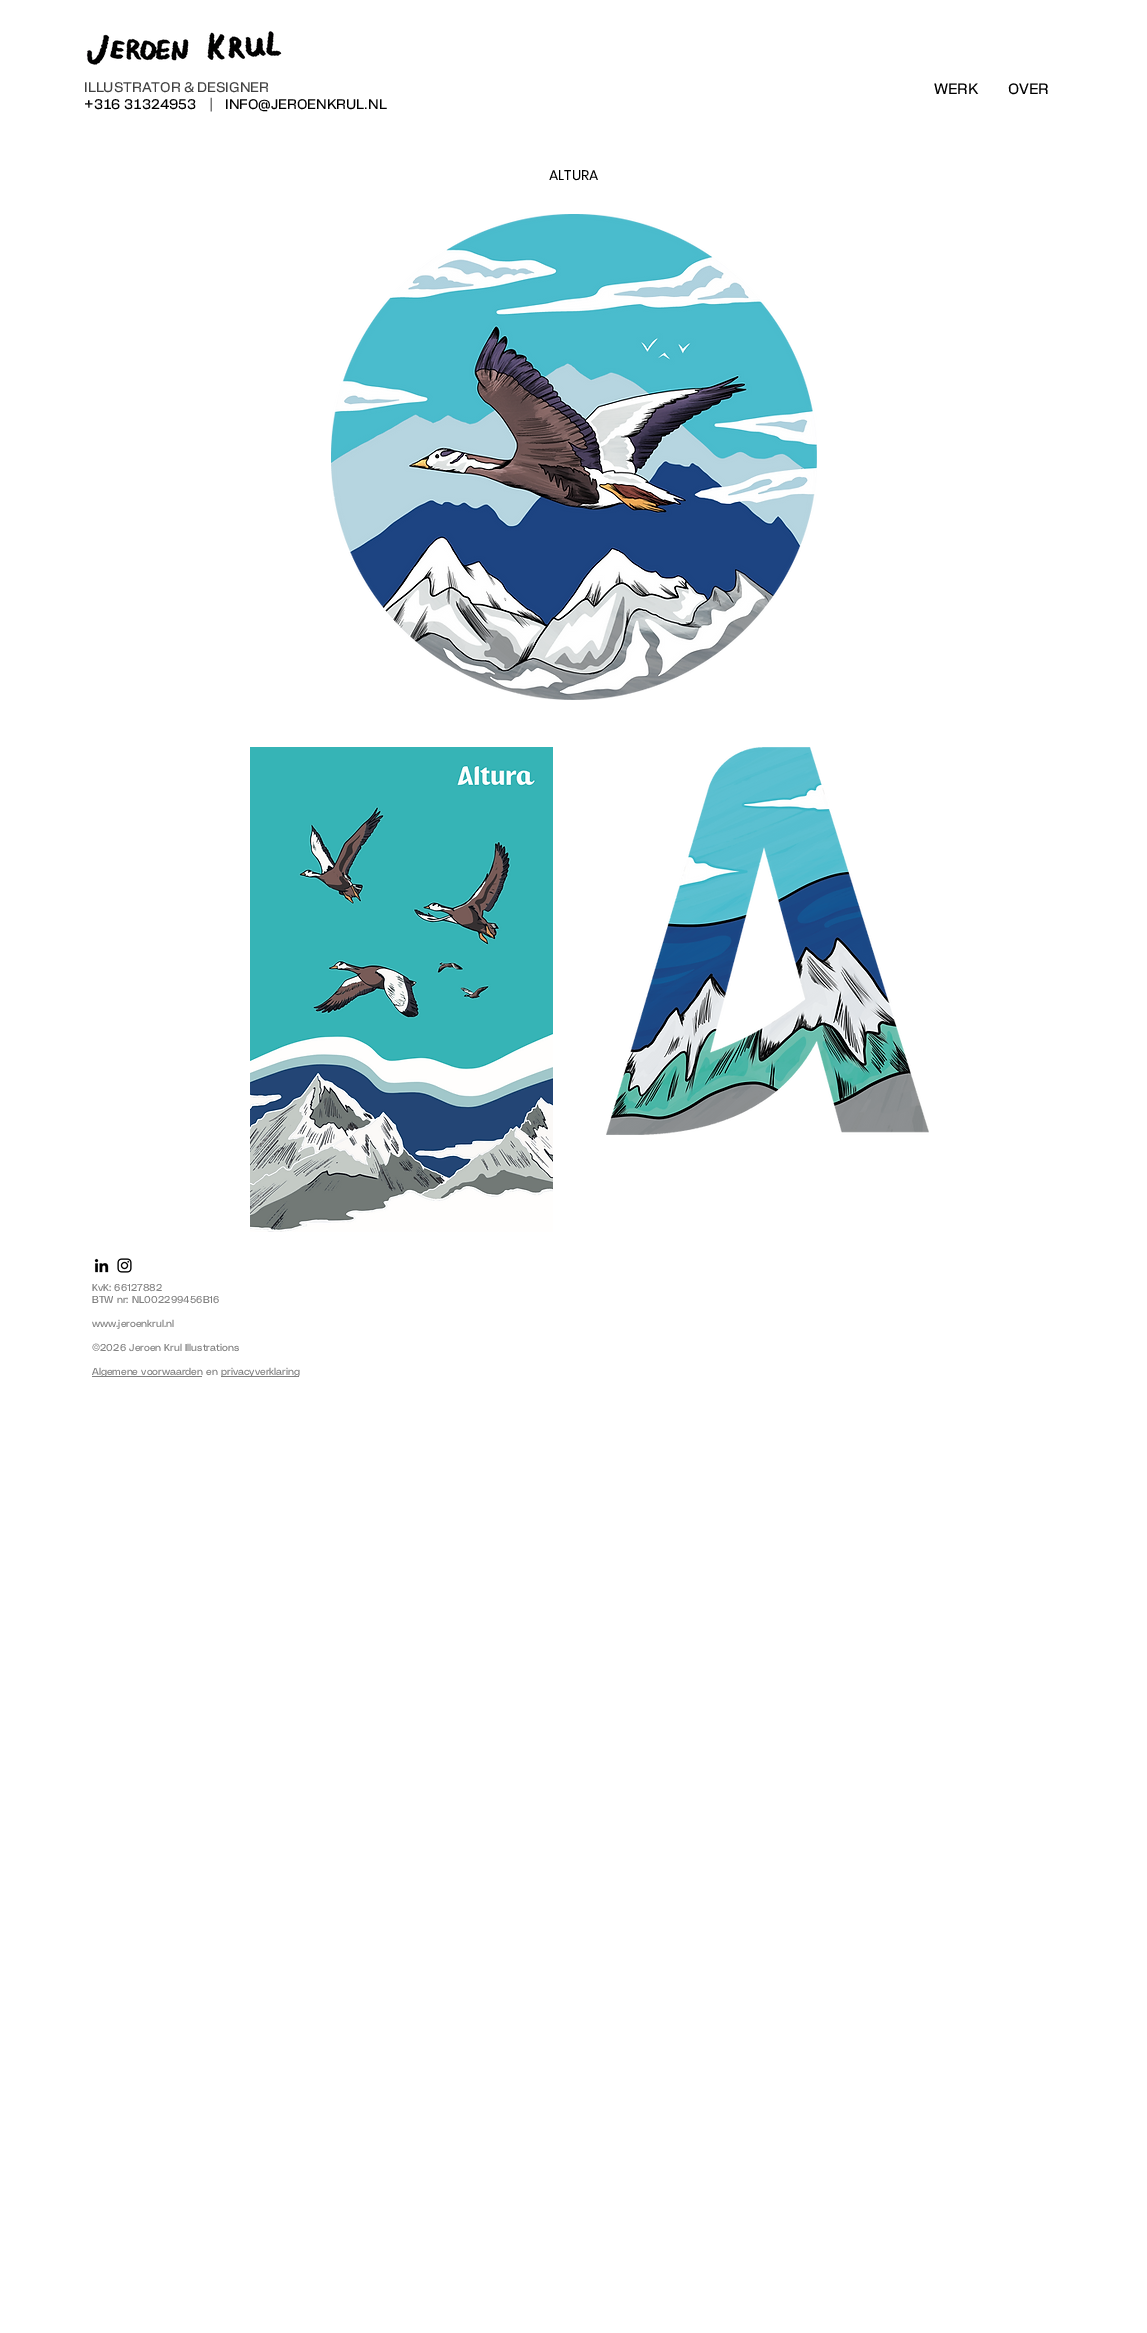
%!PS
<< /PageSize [1147 2333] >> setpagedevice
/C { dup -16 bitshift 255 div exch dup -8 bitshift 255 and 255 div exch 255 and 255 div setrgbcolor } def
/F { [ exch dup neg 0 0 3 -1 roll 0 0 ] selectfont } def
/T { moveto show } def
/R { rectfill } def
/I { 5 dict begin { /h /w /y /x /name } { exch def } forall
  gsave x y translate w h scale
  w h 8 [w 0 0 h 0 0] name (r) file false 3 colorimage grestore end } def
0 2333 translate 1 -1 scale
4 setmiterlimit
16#FFFFFF C
0 0 1147 2333 R
(1.rgb) 86 31 196 34 I
/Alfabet-Regular 14 F
16#414141 C
(ILLUSTRATOR & DESIGNER) 84 92 T
16#000000 C
(+316 31324953    |) 84 109 T
(INFO@JEROENKRUL.NL) 225 109 T
/Alfabet-Regular 15 F
(WERK) 934 94 T
(OVER) 1008 94 T
/Poppins-Regular 14 F
(ALTURA) 549 180 T
(2.rgb) 331 214 486 486 I
(3.rgb) 250 747 303 485 I
(4.rgb) 606 747 323 388 I
(5.rgb) 94 1258 15 15 I
(6.rgb) 117 1258 15 15 I
/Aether-Regular 10 F
16#808080 C
(KvK: 66127882) 92 1291 T
(BTW nr: NL002299456B16) 92 1303 T
(www.jeroenkrul.nl) 92 1327 T
(©2026 Jeroen Krul Illustrations) 92 1351 T
92 1376 110 1 R
(Algemene voorwaarden en) 92 1375 T
221 1376 78 1 R
(privacyverklaring) 221 1375 T
showpage
